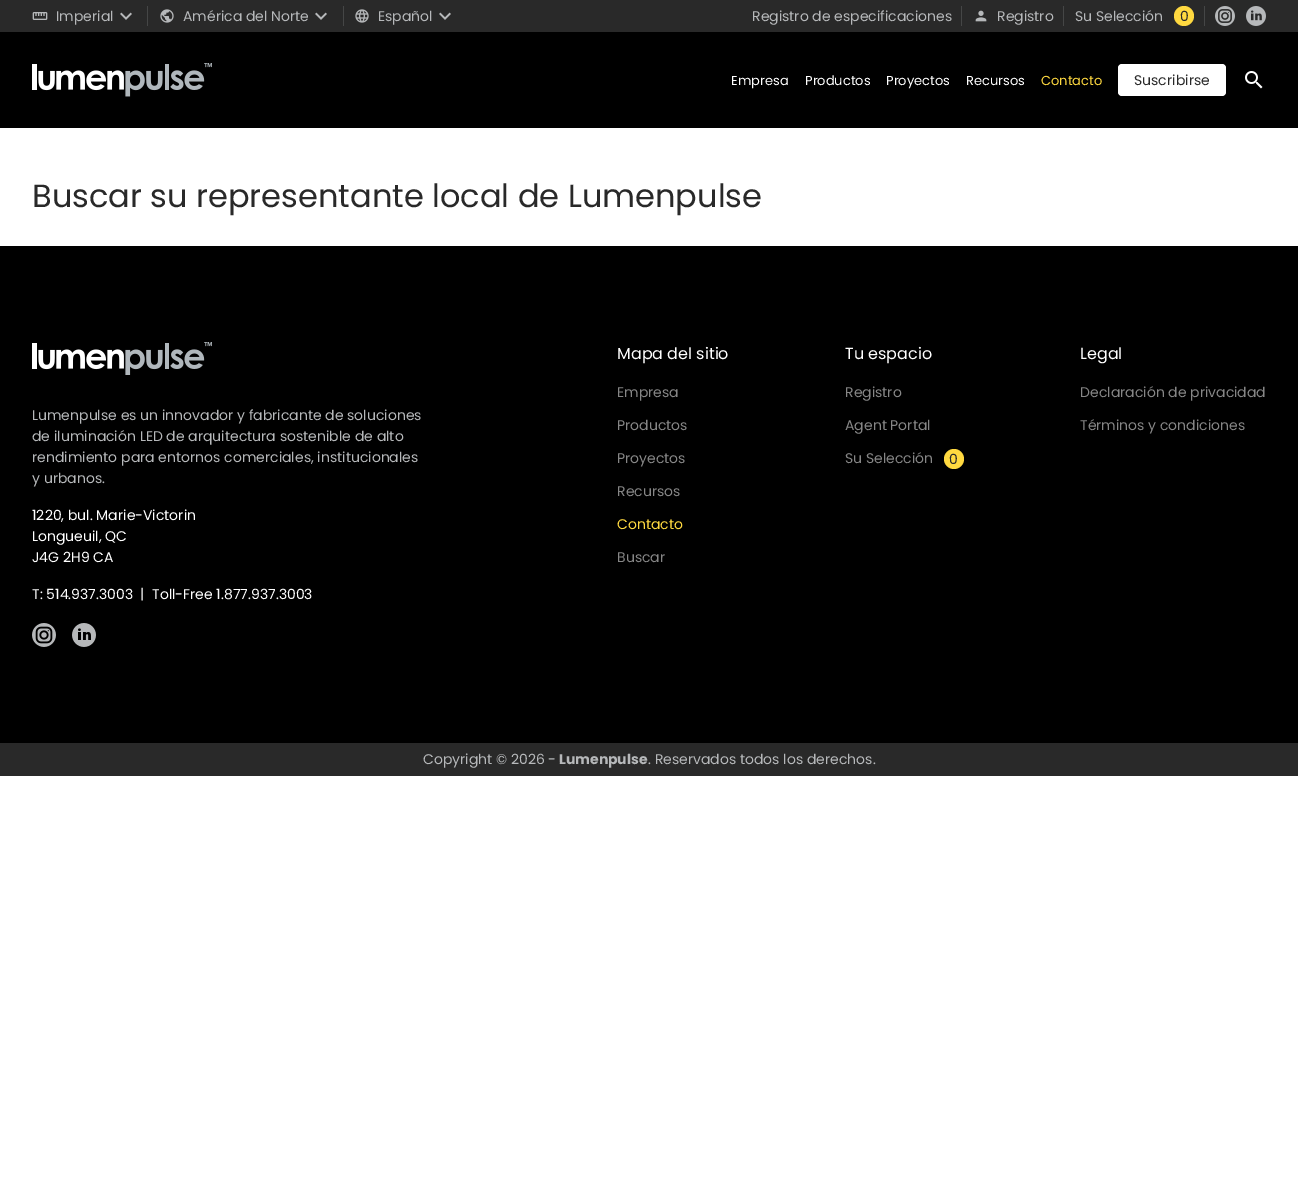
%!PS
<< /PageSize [1298 1188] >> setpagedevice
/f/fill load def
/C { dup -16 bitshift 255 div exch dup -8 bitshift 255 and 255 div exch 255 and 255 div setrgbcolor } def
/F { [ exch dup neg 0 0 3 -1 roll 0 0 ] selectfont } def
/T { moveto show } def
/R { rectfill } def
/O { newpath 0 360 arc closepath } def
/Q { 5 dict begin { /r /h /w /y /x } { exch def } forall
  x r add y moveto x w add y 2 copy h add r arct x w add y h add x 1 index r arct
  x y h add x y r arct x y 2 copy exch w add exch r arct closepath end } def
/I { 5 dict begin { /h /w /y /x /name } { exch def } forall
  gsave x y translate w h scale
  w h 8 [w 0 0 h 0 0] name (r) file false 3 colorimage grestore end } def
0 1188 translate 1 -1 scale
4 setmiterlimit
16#FFFFFF C
0 0 1298 1188 R
16#292929 C
0 0 1298 32 R
(1.rgb) 32 12 16 8 I
/Poppins-Regular 14 F
16#B6B8BA C
(Imperial) 56 21 T
(2.rgb) 120 12 12 8 I
16#454646 C
147 6 1 20 R
(3.rgb) 160 9 14 14 I
16#B6B8BA C
(América del Norte) 183 21 T
(2.rgb) 315 12 12 8 I
16#454646 C
343 6 1 20 R
(4.rgb) 355 9 14 14 I
16#B6B8BA C
(Español) 378 21 T
(2.rgb) 439 12 12 8 I
(Registro de especificaciones) 752 21 T
16#454646 C
961 6 1 20 R
(5.rgb) 975 10 12 12 I
16#B6B8BA C
(Registro) 997 21 T
16#454646 C
1063 6 1 20 R
16#B6B8BA C
(Su Selección) 1075 21 T
16#FFD940 C
1184 16 10 O f
16#292929 C
(0) 1180 21 T
16#454646 C
1204 6 1 20 R
(6.rgb) 1215 6 20 20 I
(7.rgb) 1246 6 20 20 I
16#000000 C
0 32 1298 96 R
(8.rgb) 32 63 180 34 I
/Poppins-Regular 13 F
16#FFFFFF C
(Empresa) 731 85 T
(Productos) 805 85 T
(Proyectos) 886 85 T
(Recursos) 966 85 T
16#FFD940 C
(Contacto) 1041 85 T
16#FFFFFF C
1118 64 108 32 4 Q f
/Poppins-Regular 14 F
16#292929 C
(Suscribirse) 1134 85 T
(9.rgb) 1245 71 18 18 I
/Poppins-Regular 32 F
(Buscar su representante local de Lumenpulse) 32 207 T
16#000000 C
0 246 1298 497 R
(10.rgb) 32 342 180 33 I
/Poppins-Regular 14 F
16#B6B8BA C
(Lumenpulse es un innovador y fabricante de soluciones) 32 420 T
(de iluminación LED de arquitectura sostenible de alto) 32 441 T
(rendimiento para entornos comerciales, institucionales) 32 462 T
(y urbanos.) 32 483 T
16#FFFFFF C
(1220, bul. Marie-Victorin) 32 520 T
(Longueuil, QC) 32 541 T
(J4G 2H9 CA) 32 562 T
(T: 514.937.3003  |  Toll-Free 1.877.937.3003) 32 599 T
(11.rgb) 32 623 24 24 I
(12.rgb) 72 623 24 24 I
/Poppins-Regular 16 F
(Mapa del sitio) 617 359 T
/Poppins-Regular 14 F
16#868686 C
(Empresa) 617 397 T
(Productos) 617 430 T
(Proyectos) 617 463 T
(Recursos) 617 496 T
16#FFD940 C
(Contacto) 617 529 T
16#868686 C
(Buscar) 617 562 T
/Poppins-Regular 16 F
16#FFFFFF C
(Tu espacio) 845 359 T
/Poppins-Regular 14 F
16#868686 C
(Registro) 845 397 T
(Agent Portal) 845 430 T
(Su Selección) 845 463 T
16#FFD940 C
954 459 10 O f
16#292929 C
(0) 949 464 T
/Poppins-Regular 16 F
16#FFFFFF C
(Legal) 1080 359 T
/Poppins-Regular 14 F
16#868686 C
(Declaración de privacidad) 1080 397 T
(Términos y condiciones) 1080 430 T
16#292929 C
0 743 1298 33 R
16#B6B8BA C
(Copyright © 2026 -) 423 764 T
/Poppins-Bold 14 F
(Lumenpulse) 559 764 T
/Poppins-Regular 14 F
(. Reservados todos los derechos.) 648 764 T
showpage
